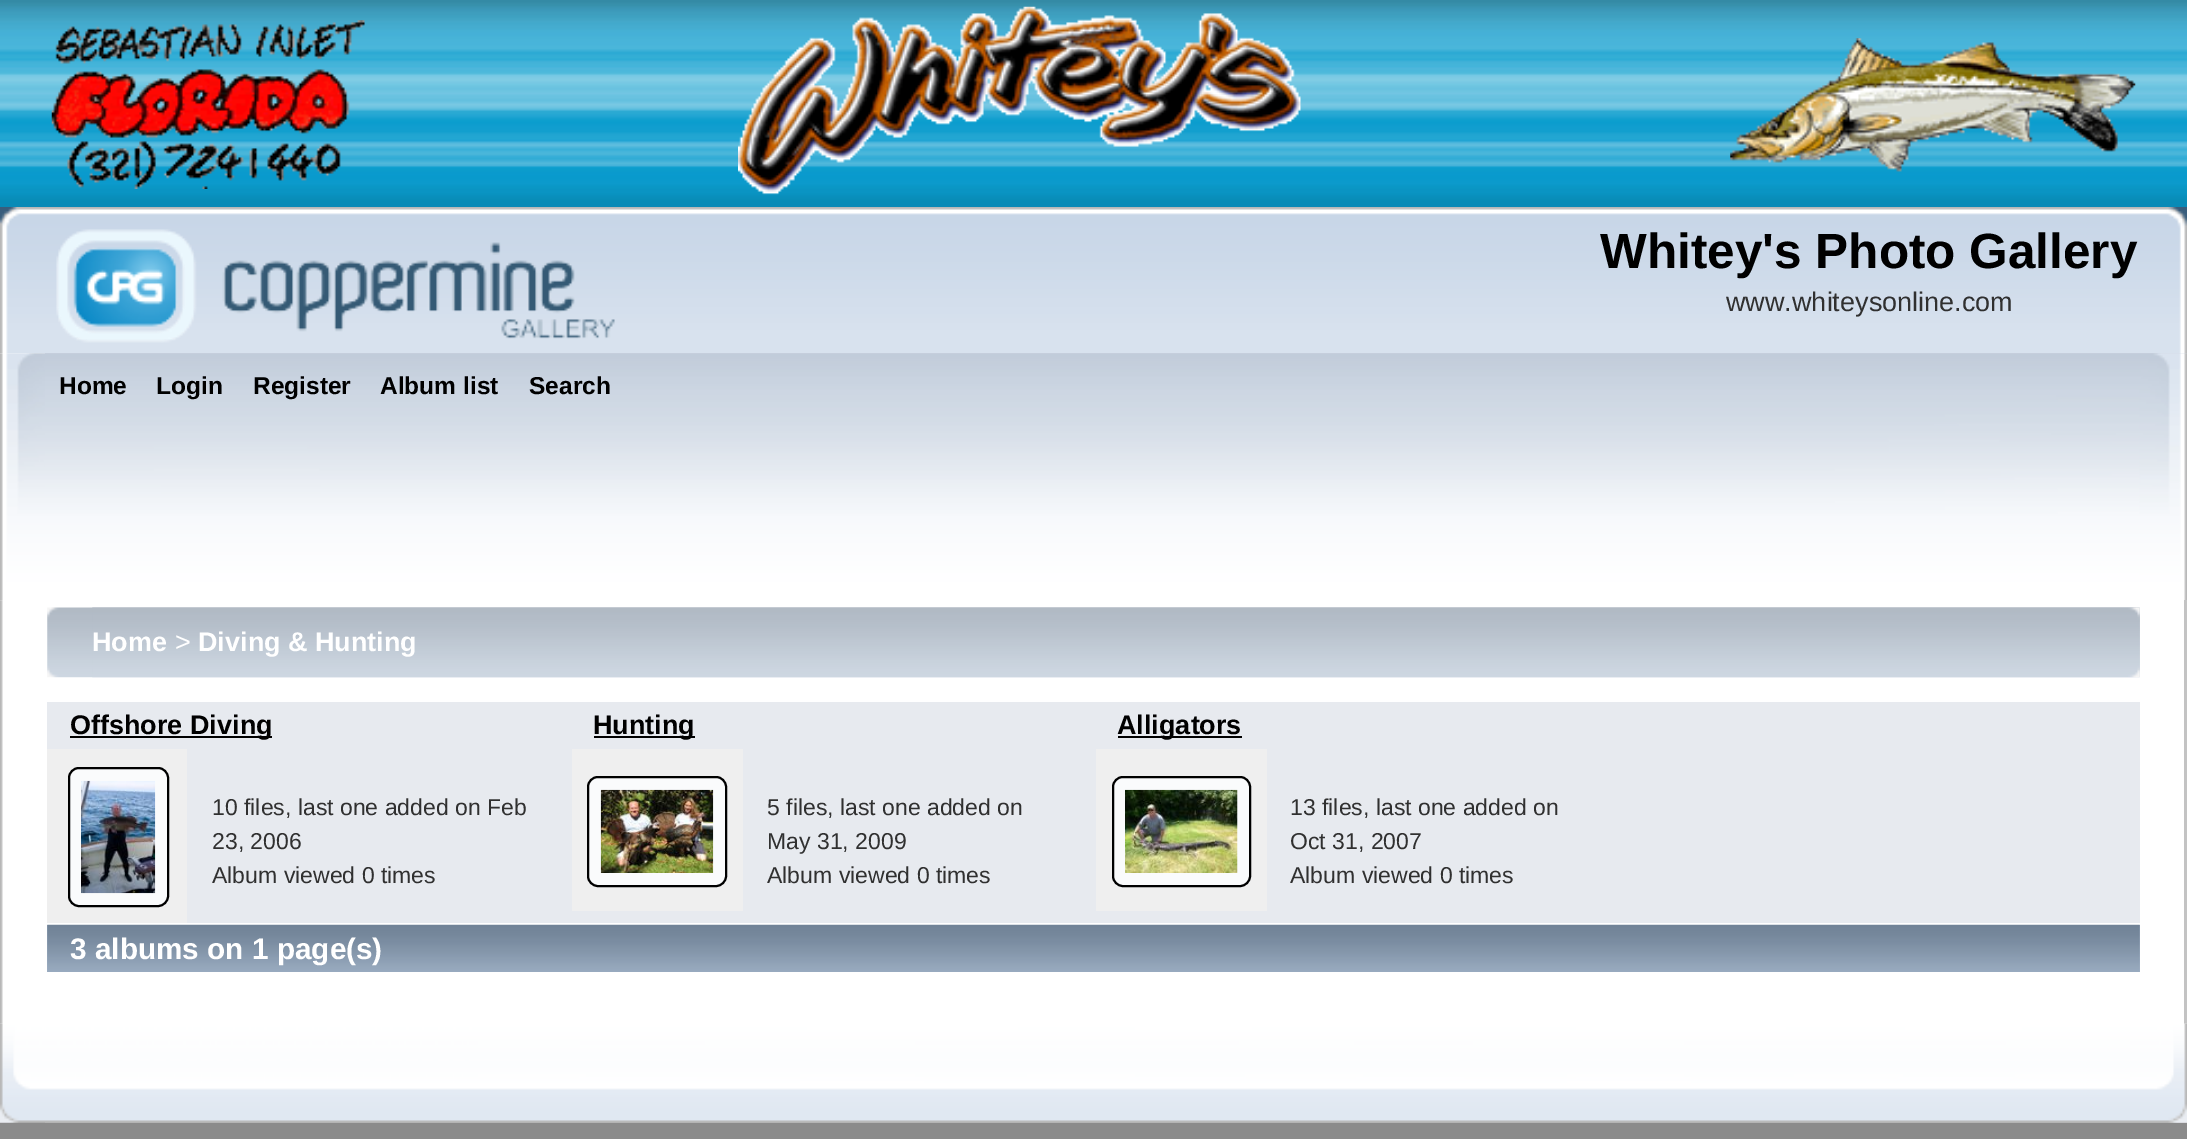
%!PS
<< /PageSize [2187 1139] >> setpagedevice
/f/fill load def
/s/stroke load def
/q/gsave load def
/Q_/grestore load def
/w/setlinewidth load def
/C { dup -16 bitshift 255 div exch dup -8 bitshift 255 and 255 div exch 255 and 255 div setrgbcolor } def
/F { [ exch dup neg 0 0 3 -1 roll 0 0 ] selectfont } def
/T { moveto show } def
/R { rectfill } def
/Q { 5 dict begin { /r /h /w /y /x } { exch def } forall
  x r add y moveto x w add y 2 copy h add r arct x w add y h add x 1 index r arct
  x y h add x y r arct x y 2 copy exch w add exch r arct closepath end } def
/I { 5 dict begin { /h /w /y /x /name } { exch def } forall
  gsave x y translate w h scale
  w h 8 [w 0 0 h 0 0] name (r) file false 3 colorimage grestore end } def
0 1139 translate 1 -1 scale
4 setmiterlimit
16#8B8B8B C
0 0 2187 1139 R
(1.rgb) 0 0 2187 207 I
(2.rgb) 51 20 314 169 I
(3.rgb) 738 6 563 189 I
(4.rgb) 1730 38 406 134 I
(5.rgb) 0 207 2187 147 I
(6.rgb) 45 207 2142 147 I
(7.rgb) 56 229 559 114 I
/LiberationSans-Bold 49.5 F
16#000000 C
(Whitey's Photo Gallery) 1600 268 T
/LiberationSans-Regular 27 F
16#303030 C
(www.whiteysonline.com) 1726 311 T
(8.rgb) 0 353 2187 248 I
(9.rgb) 45 353 2142 248 I
/LiberationSans-Bold 24.5 F
16#000000 C
(Home) 59 394 T
(Login) 156 394 T
(Register) 253 394 T
(Album list) 380 394 T
(Search) 529 394 T
(10.rgb) 0 600 2184 424 I
16#C3C3C3 C
2184 600 3 424 R
(11.rgb) 47 607 2093 71 I
(12.rgb) 92 607 2048 71 I
/LiberationSans-Bold 27 F
16#FFFFFF C
(Home) 92 651 T
/LiberationSans-Regular 27 F
(>) 175 651 T
/LiberationSans-Bold 27 F
(Diving & Hunting) 198 651 T
16#E7EAEF C
47 702 2093 221 R
16#000000 C
70 736 202 2 R
(Offshore Diving) 70 734 T
16#EFEFEF C
47 749 140 174 R
16#FAFBFC C
69 768 99 138 10 Q q f Q_
16#000000 C
2 w
s
(13.rgb) 81 780 75 114 I
/LiberationSans-Regular 23 F
16#303030 C
(10 files, last one added on Feb) 212 815 T
(23, 2006) 212 849 T
(Album viewed 0 times) 212 883 T
16#000000 C
594 736 101 2 R
/LiberationSans-Bold 27 F
(Hunting) 593 734 T
16#EFEFEF C
572 749 171 162 R
16#FAFBFC C
588 777 138 109 10 Q q f Q_
16#000000 C
s
(14.rgb) 600 789 114 84 I
/LiberationSans-Regular 23 F
16#303030 C
(5 files, last one added on) 767 815 T
(May 31, 2009) 767 849 T
(Album viewed 0 times) 767 883 T
16#000000 C
1118 736 124 2 R
/LiberationSans-Bold 27 F
(Alligators) 1117 734 T
16#EFEFEF C
1096 749 171 162 R
16#FAFBFC C
1113 777 137 109 10 Q q f Q_
16#000000 C
s
(15.rgb) 1125 789 113 84 I
/LiberationSans-Regular 23 F
16#303030 C
(13 files, last one added on) 1290 815 T
(Oct 31, 2007) 1290 849 T
(Album viewed 0 times) 1290 883 T
(16.rgb) 47 924 2093 48 I
/LiberationSans-Bold 29.75 F
16#FFFFFF C
(3 albums on 1 page\(s\)) 70 959 T
(17.rgb) 0 1023 2187 100 I
(18.rgb) 45 1023 2142 100 I
showpage
